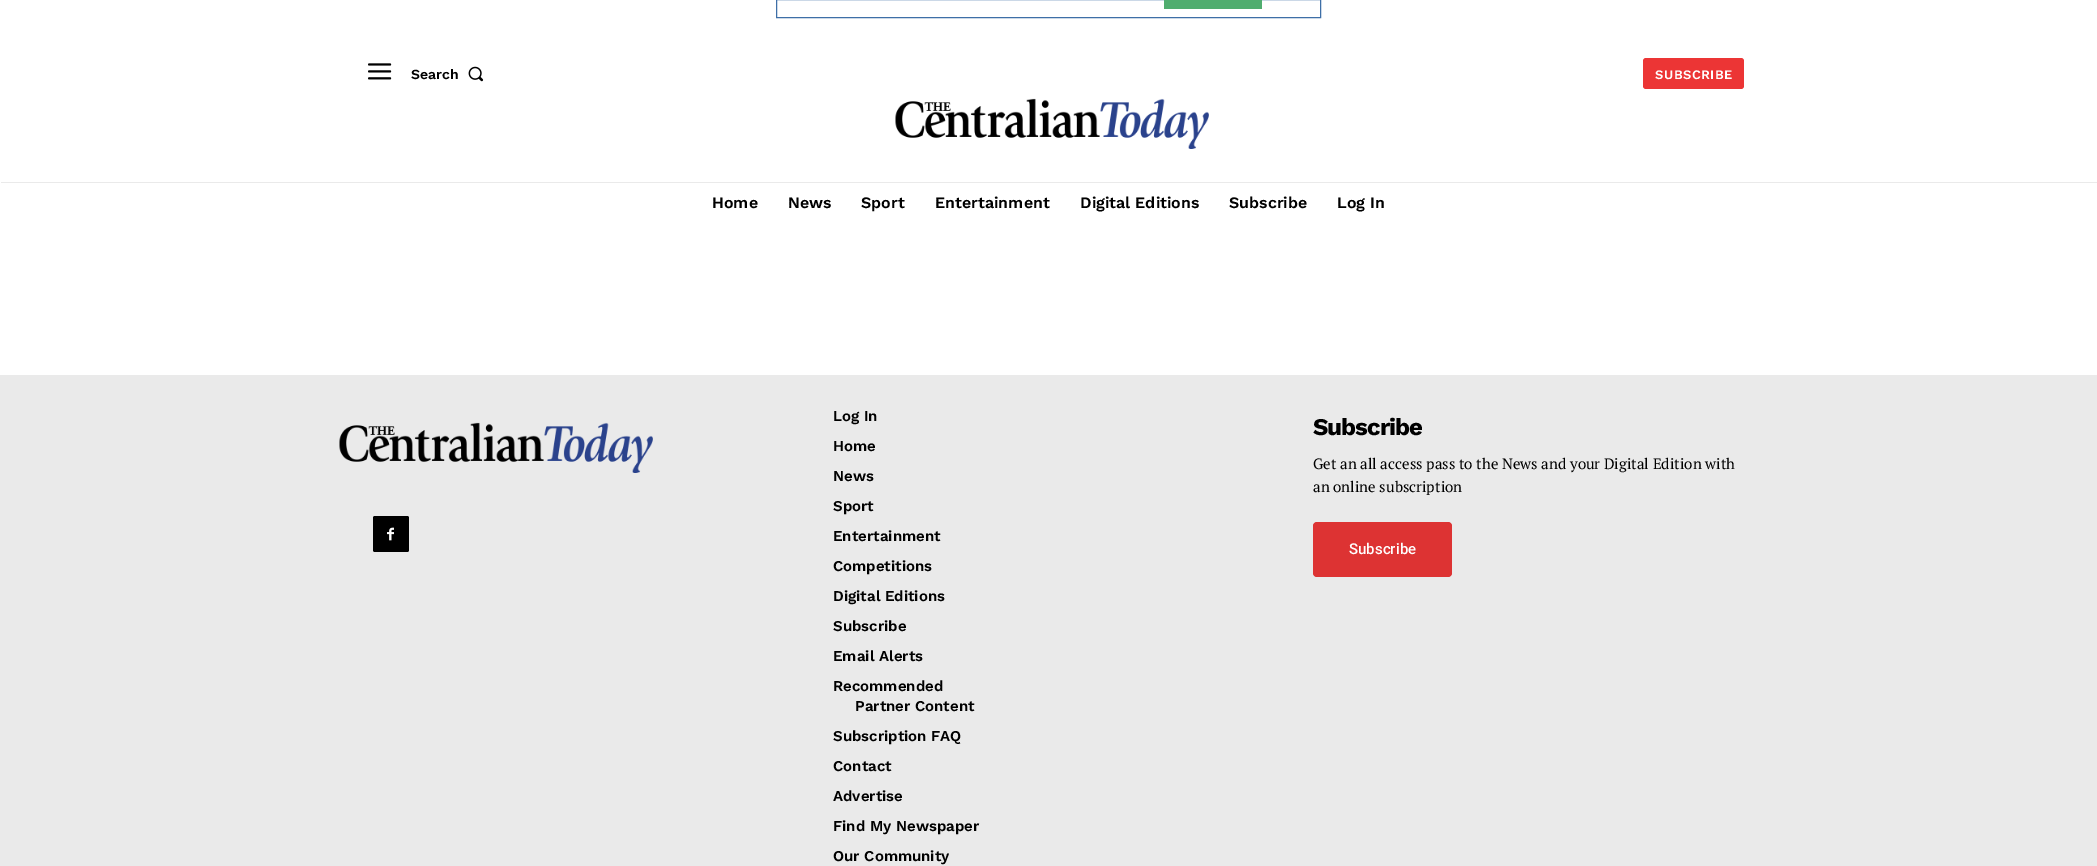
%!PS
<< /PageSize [2097 866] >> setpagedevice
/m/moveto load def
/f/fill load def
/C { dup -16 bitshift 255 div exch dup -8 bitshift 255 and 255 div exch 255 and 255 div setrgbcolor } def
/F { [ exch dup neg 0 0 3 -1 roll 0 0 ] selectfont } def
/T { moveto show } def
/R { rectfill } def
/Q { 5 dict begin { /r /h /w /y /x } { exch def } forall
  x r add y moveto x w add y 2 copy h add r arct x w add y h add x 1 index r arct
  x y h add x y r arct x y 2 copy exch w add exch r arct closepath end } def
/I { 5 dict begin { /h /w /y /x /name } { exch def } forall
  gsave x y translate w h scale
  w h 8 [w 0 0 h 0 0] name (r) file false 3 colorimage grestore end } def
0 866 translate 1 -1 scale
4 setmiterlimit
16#FFFFFF C
0 0 2097 866 R
(1.rgb) 368 63 24 17 I
/WorkSans-SemiBold 14 F
16#000000 C
(Search) 411 79 T
(2.rgb) 468 66 16 16 I
16#3E6FA7 C
776.5 -.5 544 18 rectstroke
16#50AD6F C
1164 0 98 9 R
(3.rgb) 895 98 314 51 I
16#EC3535 C
1643 58 101 31 3 Q f
/WorkSans-SemiBold 13 F
16#FFFFFF C
1655 79 m .5 0 (SUBSCRIBE) ashow
16#EAEAEA C
1 182 2096 1 R
/WorkSans-SemiBold 16 F
16#000000 C
(Home) 712 208 T
(News) 788 208 T
(Sport) 861 208 T
(Entertainment) 935 208 T
(Digital Editions) 1080 208 T
(Subscribe) 1229 208 T
(Log In) 1337 208 T
16#EAEAEA C
0 375 2097 491 R
(4.rgb) 339 422 314 51 I
16#000000 C
373 516 36 36 2 Q f
(5.rgb) 387 527 7 14 I
/WorkSans-SemiBold 15 F
(Log In) 833 421 T
(Home) 833 451 T
(News) 833 481 T
(Sport) 833 511 T
(Entertainment) 833 541 T
(Competitions) 833 571 T
(Digital Editions) 833 601 T
(Subscribe) 833 631 T
(Email Alerts) 833 661 T
(Recommended) 833 691 T
(Partner Content) 855 711 T
(Subscription FAQ) 833 741 T
(Contact) 833 771 T
(Advertise) 833 801 T
(Find My Newspaper) 833 831 T
(Our Community) 833 861 T
/WorkSans-Bold 24 F
1313 435 m -1 0 (Subscribe) ashow
/PTSerif-Regular 15 F
(Get an all access pass to the News and your Digital Edition with) 1313 469 T
(an online subscription) 1313 492 T
16#DD3333 C
1313 522 139 55 4 Q f
/Roboto-Medium 15 F
16#FFFFFF C
(Subscribe) 1349 554 T
showpage
